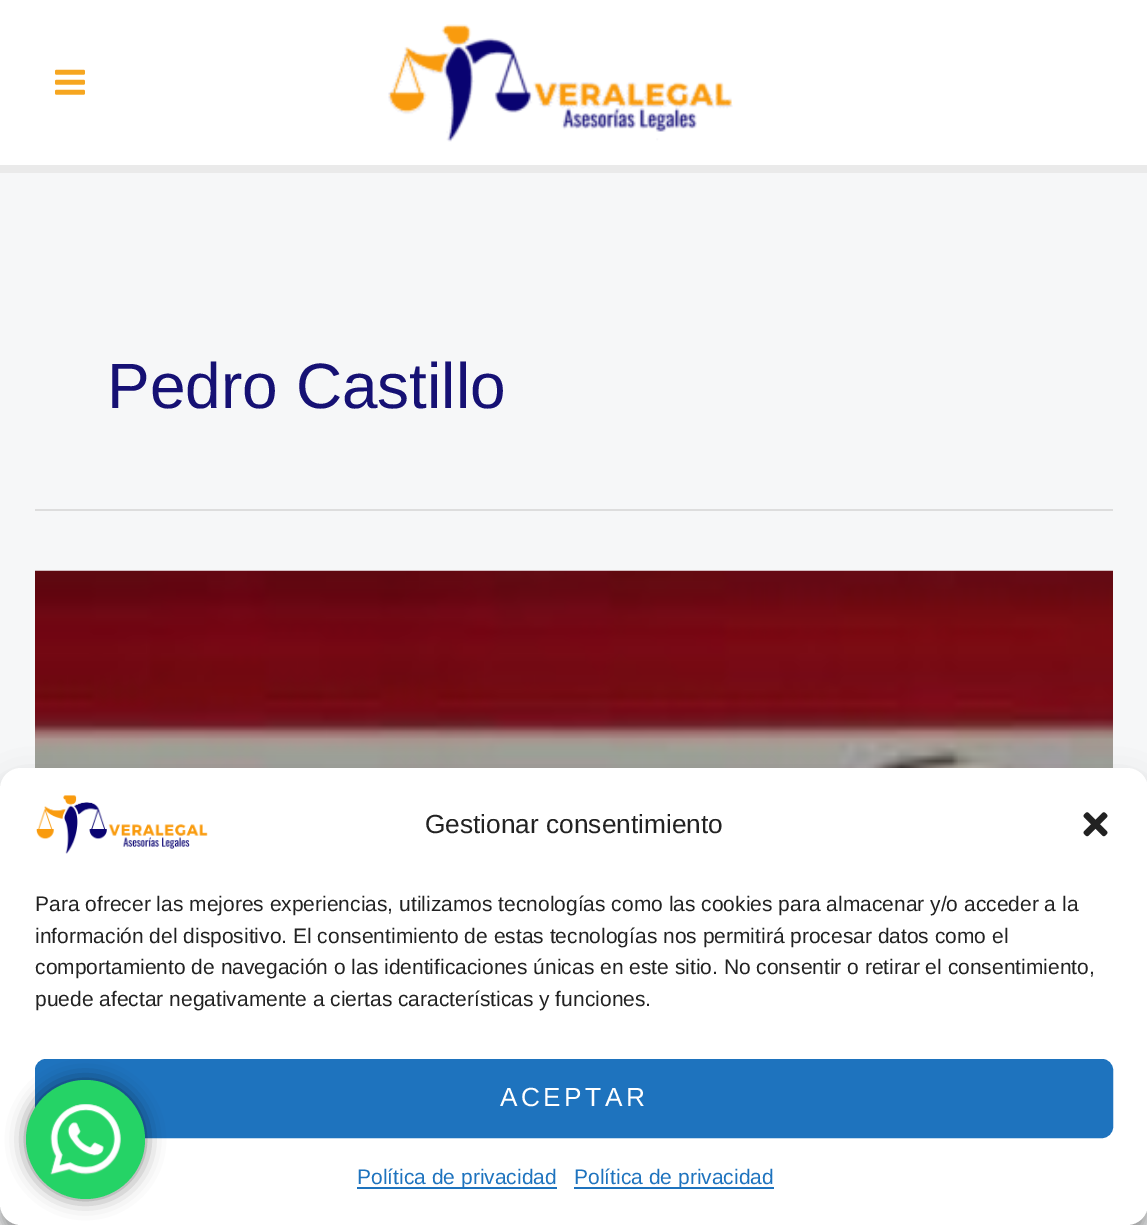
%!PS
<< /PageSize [1147 1225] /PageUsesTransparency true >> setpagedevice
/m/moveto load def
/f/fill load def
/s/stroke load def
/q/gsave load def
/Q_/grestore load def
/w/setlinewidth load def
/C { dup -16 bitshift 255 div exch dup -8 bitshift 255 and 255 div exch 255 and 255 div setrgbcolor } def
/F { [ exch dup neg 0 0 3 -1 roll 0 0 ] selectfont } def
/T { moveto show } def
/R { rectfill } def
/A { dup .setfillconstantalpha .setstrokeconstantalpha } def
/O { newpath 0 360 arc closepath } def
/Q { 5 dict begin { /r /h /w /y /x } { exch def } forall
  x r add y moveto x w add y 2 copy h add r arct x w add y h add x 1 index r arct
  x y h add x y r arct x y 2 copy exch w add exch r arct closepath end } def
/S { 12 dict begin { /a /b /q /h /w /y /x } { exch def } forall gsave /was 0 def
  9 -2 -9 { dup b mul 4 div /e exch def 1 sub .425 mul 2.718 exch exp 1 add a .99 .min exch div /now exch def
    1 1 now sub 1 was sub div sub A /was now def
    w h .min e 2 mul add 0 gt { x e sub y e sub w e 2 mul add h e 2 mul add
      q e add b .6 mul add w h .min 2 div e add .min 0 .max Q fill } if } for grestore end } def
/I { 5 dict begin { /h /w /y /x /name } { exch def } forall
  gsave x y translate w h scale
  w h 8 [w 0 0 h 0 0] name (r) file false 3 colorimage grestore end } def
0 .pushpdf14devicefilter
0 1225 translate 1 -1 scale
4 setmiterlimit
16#F6F7F8 C
0 0 1147 1225 R
16#FFFFFF C
0 0 1147 165 R
16#EAEAEA C
0 165 1147 8 R
(1.rgb) 55 69 30 26 I
(2.rgb) 388 24 345 118 I
16#DDDDDD C
35 509 1078 2 R
/LiberationSans-Regular 64 F
16#161174 C
(Pedro Castillo) 107 408 T
(3.rgb) 35 570 1078 198 I
16#000000 C
0 779 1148 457 21 5 .23 S
0 786 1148 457 21 17.5 .19 S
16#FFFFFF C
0 768 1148 457 21 Q f
(4.rgb) 36 795 172 59 I
/LiberationSans-Regular 26.25 F
16#222222 C
(Gestionar consentimiento) 425 833 T
(5.rgb) 1083 812 25 25 I
/LiberationSans-Regular 21 F
(Para ofrecer las mejores experiencias, utilizamos tecnologías como las cookies para almacenar y/o acceder a la) 35 911 T
(información del dispositivo. El consentimiento de estas tecnologías nos permitirá procesar datos como el) 35 943 T
(comportamiento de navegación o las identificaciones únicas en este sitio. No consentir o retirar el consentimiento,) 35 974 T
(puede afectar negativamente a ciertas características y funciones.) 35 1006 T
16#1E73BE C
36 1060 1076 77 10 Q q f Q_
2 w
s
/LiberationSans-Regular 26.25 F
16#FFFFFF C
500 1106 m 3.5 0 (ACEPTAR) ashow
16#1E73BE C
357 1187 200 2 R
/LiberationSans-Regular 21 F
(Política de privacidad) 357 1184 T
574 1187 200 2 R
(Política de privacidad) 574 1184 T
16#000000 C
26 1080 119 119 59.5 9.5 .5 S
16#25D366 C
85.5 1139.5 59.5 O f
(6.rgb) 50 1104 71 71 I
.poppdf14devicefilter showpage
